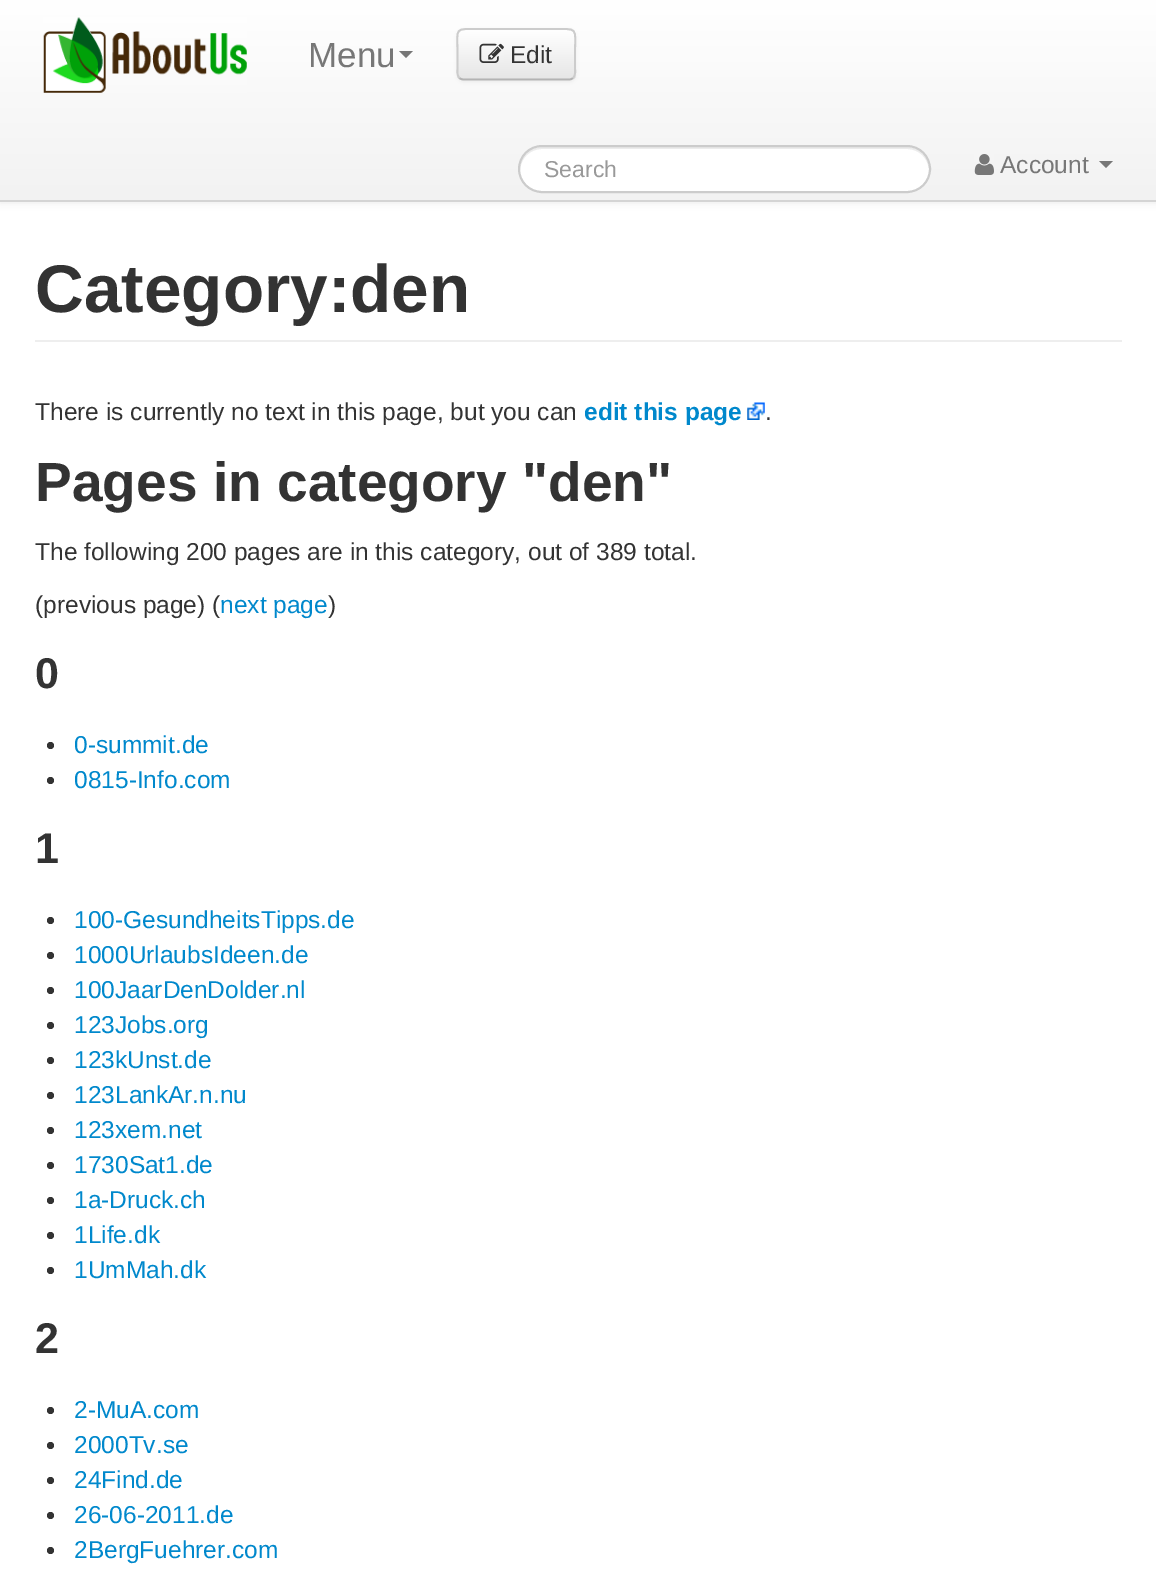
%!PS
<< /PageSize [1156 1582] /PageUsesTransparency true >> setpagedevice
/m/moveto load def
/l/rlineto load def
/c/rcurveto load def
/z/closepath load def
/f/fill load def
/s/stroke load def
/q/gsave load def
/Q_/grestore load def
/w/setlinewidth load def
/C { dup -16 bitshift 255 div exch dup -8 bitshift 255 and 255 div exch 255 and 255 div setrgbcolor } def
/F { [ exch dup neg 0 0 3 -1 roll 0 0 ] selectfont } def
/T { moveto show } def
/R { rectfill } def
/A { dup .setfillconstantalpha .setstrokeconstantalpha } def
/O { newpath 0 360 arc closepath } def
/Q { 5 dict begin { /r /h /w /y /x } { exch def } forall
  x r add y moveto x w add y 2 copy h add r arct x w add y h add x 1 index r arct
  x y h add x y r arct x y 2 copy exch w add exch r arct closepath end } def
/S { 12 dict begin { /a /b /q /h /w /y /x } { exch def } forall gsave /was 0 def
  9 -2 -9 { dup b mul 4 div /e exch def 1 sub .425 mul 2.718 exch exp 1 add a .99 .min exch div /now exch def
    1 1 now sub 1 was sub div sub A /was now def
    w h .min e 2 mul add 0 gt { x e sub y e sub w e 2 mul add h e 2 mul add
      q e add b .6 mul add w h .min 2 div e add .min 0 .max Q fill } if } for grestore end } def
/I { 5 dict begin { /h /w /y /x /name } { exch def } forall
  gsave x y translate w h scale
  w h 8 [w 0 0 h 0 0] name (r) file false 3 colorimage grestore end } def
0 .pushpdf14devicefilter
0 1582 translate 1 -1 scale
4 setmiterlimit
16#FFFFFF C
0 0 1156 1582 R
16#000000 C
0 2 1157 201 0 3.5 .07 S
q 0 0 m 1156 0 l 0 200 l -1156 0 l z clip newpath
<< /ShadingType 2 /ColorSpace /DeviceRGB /Coords [578 0 578 200] /Extend [true true] /Function << /FunctionType 2 /Domain [0 1] /C0 [1 1 1] /C1 [.949 .949 .949] /N 1 >> >> shfill Q_
16#D4D4D4 C
0 200 1156 2 R
(1.rgb) 43 17 204 76 I
/LiberationSans-Regular 35 F
16#777777 C
(Menu) 308 67 T
399 51 m 14 0 l -7 7 l z f
16#000000 C
457 30 119 52 7 2 .05 S
16#F5F5F5 C
457 28 119 53 7 Q f
q
457 28 119 53 7 Q clip newpath
q 457 30 m 119 0 l 0 49 l -119 0 l z clip newpath
<< /ShadingType 2 /ColorSpace /DeviceRGB /Coords [516 30 516 79] /Extend [true true] /Function << /FunctionType 2 /Domain [0 1] /C0 [1 1 1] /C1 [.902 .902 .902] /N 1 >> >> shfill Q_
Q_
16#B3B3B3 C
1.8 w
573 78 m -1 1 -2.5 1.5 -4 1.5 c -105 0 l -2 0 -3.5 -.5 -4.5 -1.5 c s
16#CCCCCC C
459.5 78 m -3 -3 -2 -7.5 -2 -11 c 0 -13 l 0 -27.5 -4.5 -25 23.5 -25 c 70 0 l 28.5 0 24 -2.5 24 25 c 0 13 l 0 3.5 1 8 -2 11 c s
(2.rgb) 479 43 25 20 I
/LiberationSans-Regular 24.5 F
16#333333 C
(Edit) 510 63 T
16#FFFFFF C
518 145 413 48 24 Q f
16#ECECEC C
542 149 m 365 0 l 12 0 21 9 22 21 c 1 -12 -10 -23 -22 -23 c -365 0 l -12 0 -23 11 -22 23 c 1 -12 10 -21 22 -21 c z f
16#CCCCCC C
2 w
519 146 411 46 23 Q s
/LiberationSans-Regular 23 F
16#999999 C
(Search) 544 177 T
(3.rgb) 974 154 20 21 I
/LiberationSans-Regular 24.5 F
16#777777 C
(Account) 1000 173 T
1099 161 m 14 0 l -7 7 l z f
16#EEEEEE C
35 340 1087 2 R
/LiberationSans-Bold 67.5 F
16#333333 C
(Category:den) 35 312 T
/LiberationSans-Regular 24.5 F
(There is currently no text in this page, but you can) 35 420 T
/LiberationSans-Bold 24.5 F
16#0088CC C
(edit this page) 584 420 T
(4.rgb) 747 402 18 18 I
/LiberationSans-Regular 24.5 F
16#333333 C
(.) 765 420 T
/LiberationSans-Bold 55.1 F
(Pages in category "den") 35 501 T
/LiberationSans-Regular 24.5 F
(The following 200 pages are in this category, out of 389 total.) 35 560 T
(\(previous page\) \() 35 613 T
16#0088CC C
(next page) 220 613 T
16#333333 C
(\)) 328 613 T
/LiberationSans-Bold 43 F
(0) 35 688 T
50.5 745.5 3.5 O f
/LiberationSans-Regular 24.5 F
16#0088CC C
(0-summit.de) 74 753 T
16#333333 C
50.5 780.5 3.5 O f
16#0088CC C
(0815-Info.com) 74 788 T
/LiberationSans-Bold 43 F
16#333333 C
(1) 35 863 T
50.5 920.5 3.5 O f
/LiberationSans-Regular 24.5 F
16#0088CC C
(100-GesundheitsTipps.de) 74 928 T
16#333333 C
50.5 955.5 3.5 O f
16#0088CC C
(1000UrlaubsIdeen.de) 74 963 T
16#333333 C
50.5 990.5 3.5 O f
16#0088CC C
(100JaarDenDolder.nl) 74 998 T
16#333333 C
50.5 1025.5 3.5 O f
16#0088CC C
(123Jobs.org) 74 1033 T
16#333333 C
50.5 1060.5 3.5 O f
16#0088CC C
(123kUnst.de) 74 1068 T
16#333333 C
50.5 1095.5 3.5 O f
16#0088CC C
(123LankAr.n.nu) 74 1103 T
16#333333 C
50.5 1130.5 3.5 O f
16#0088CC C
(123xem.net) 74 1138 T
16#333333 C
50.5 1165.5 3.5 O f
16#0088CC C
(1730Sat1.de) 74 1173 T
16#333333 C
50.5 1200.5 3.5 O f
16#0088CC C
(1a-Druck.ch) 74 1208 T
16#333333 C
50.5 1235.5 3.5 O f
16#0088CC C
(1Life.dk) 74 1243 T
16#333333 C
50.5 1270.5 3.5 O f
16#0088CC C
(1UmMah.dk) 74 1278 T
/LiberationSans-Bold 43 F
16#333333 C
(2) 35 1353 T
50.5 1410.5 3.5 O f
/LiberationSans-Regular 24.5 F
16#0088CC C
(2-MuA.com) 74 1418 T
16#333333 C
50.5 1445.5 3.5 O f
16#0088CC C
(2000Tv.se) 74 1453 T
16#333333 C
50.5 1480.5 3.5 O f
16#0088CC C
(24Find.de) 74 1488 T
16#333333 C
50.5 1515.5 3.5 O f
16#0088CC C
(26-06-2011.de) 74 1523 T
16#333333 C
50.5 1550.5 3.5 O f
16#0088CC C
(2BergFuehrer.com) 74 1558 T
.poppdf14devicefilter showpage
